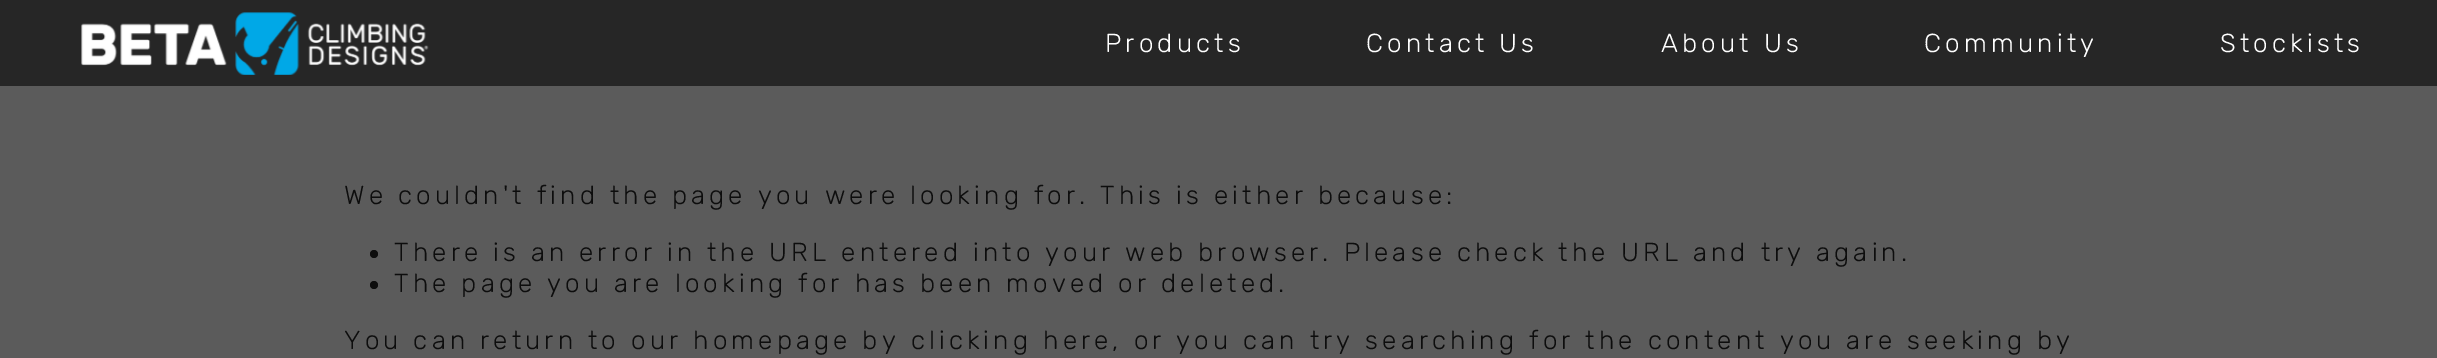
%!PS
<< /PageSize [2437 358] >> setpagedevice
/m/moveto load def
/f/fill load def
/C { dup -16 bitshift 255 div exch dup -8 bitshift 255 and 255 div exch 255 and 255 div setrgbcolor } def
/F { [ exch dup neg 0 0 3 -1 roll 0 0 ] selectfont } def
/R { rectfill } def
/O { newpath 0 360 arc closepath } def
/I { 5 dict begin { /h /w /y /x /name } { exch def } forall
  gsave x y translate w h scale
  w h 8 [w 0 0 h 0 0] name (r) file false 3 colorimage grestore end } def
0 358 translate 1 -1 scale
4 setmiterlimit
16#5B5B5B C
0 0 2437 358 R
16#262626 C
0 0 2437 86 R
(1.rgb) 81 12 348 63 I
/Rubik-Light 26 F
16#FFFFFF C
1105 52 m 4.16 0 (Products) ashow
1366 52 m 4.16 0 (Contact Us) ashow
1661 52 m 4.16 0 (About Us) ashow
1924 52 m 4.16 0 (Community) ashow
2220 52 m 4.16 0 (Stockists) ashow
16#0D0D0D C
344 204 m 4.16 0 (We couldn't find the page you were looking for. This is either because:) ashow
374 254 4 O f
394 261 m 4.16 0 (There is an error in the URL entered into your web browser. Please check the URL and try again.) ashow
374 285 4 O f
394 292 m 4.16 0 (The page you are looking for has been moved or deleted.) ashow
344 349 m 4.16 0 (You can return to our homepage by clicking here, or you can try searching for the content you are seeking by) ashow
showpage
